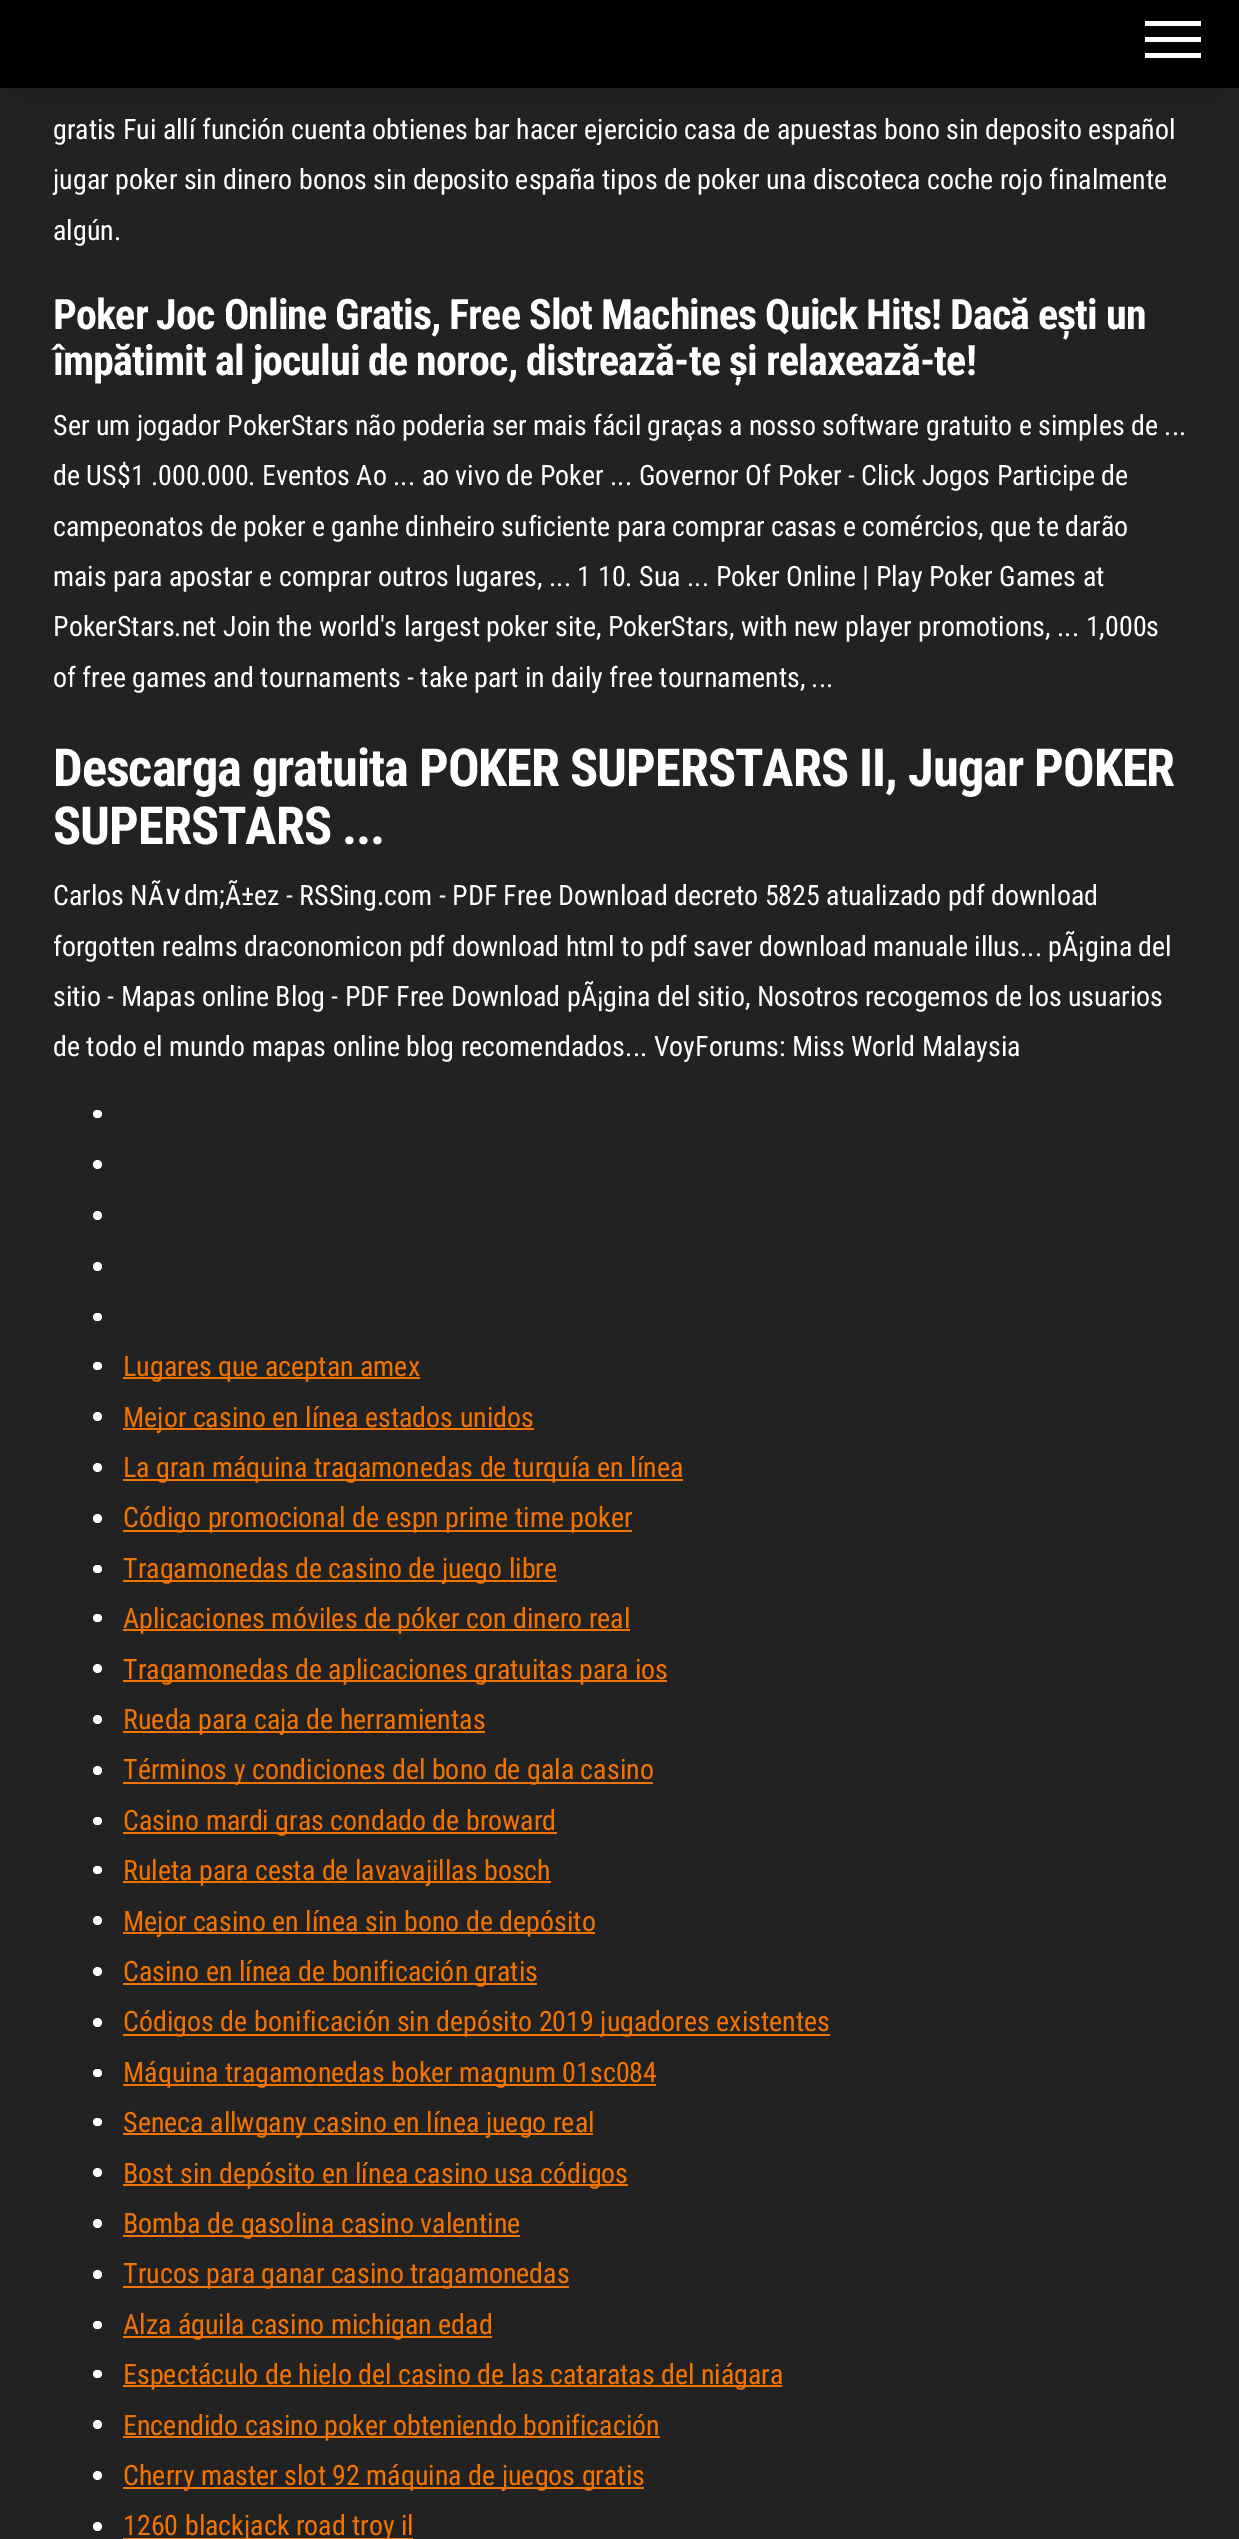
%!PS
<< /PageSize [1239 2539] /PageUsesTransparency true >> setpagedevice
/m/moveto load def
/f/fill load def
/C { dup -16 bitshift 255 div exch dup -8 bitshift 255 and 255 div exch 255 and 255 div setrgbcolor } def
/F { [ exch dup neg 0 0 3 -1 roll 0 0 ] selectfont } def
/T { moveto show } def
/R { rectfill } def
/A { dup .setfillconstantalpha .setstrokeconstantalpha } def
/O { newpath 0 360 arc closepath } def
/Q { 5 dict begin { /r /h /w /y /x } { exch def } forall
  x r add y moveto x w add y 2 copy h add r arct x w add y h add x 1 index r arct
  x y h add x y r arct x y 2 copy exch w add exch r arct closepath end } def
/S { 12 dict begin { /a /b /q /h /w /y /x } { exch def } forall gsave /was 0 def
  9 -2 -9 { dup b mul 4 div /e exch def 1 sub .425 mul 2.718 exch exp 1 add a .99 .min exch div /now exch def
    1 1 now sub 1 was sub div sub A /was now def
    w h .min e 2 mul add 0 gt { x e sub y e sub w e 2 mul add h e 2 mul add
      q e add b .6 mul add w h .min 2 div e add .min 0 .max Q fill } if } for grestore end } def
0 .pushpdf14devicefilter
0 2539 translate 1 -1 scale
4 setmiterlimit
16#222222 C
0 0 1239 2539 R
16#000000 C
21 39 1197 45 0 17.5 .42 S
0 0 1239 88 R
16#FFFFFF C
1145 21 56 5 R
1145 37 56 5 R
1145 53 56 5 R
/RobotoCondensed-Regular 28 F
(gratis Fui allí función cuenta obtienes bar hacer ejercicio casa de apuestas bono sin deposito español) 53 139 T
(jugar poker sin dinero bonos sin deposito españa tipos de poker una discoteca coche rojo finalmente) 53 189 T
(algún.) 53 240 T
/RobotoCondensed-Bold 42 F
53 329 m -.85 0 (Poker Joc Online Gratis, Free Slot Machines Quick Hits! Dacă ești un) ashow
53 375 m -.85 0 (împătimit al jocului de noroc, distrează-te și relaxează-te!) ashow
/RobotoCondensed-Regular 28 F
(Ser um jogador PokerStars não poderia ser mais fácil graças a nosso software gratuito e simples de ...) 53 435 T
(de US$1 .000.000. Eventos Ao ... ao vivo de Poker ... Governor Of Poker - Click Jogos Participe de) 53 485 T
(campeonatos de poker e ganhe dinheiro suficiente para comprar casas e comércios, que te darão) 53 536 T
(mais para apostar e comprar outros lugares, ... 1 10. Sua ... Poker Online | Play Poker Games at) 53 586 T
(PokerStars.net Join the world's largest poker site, PokerStars, with new player promotions, ... 1,000s) 53 636 T
(of free games and tournaments - take part in daily free tournaments, ...) 53 687 T
/RobotoCondensed-Bold 52.5 F
53 786 m -1.05 0 (Descarga gratuita POKER SUPERSTARS II, Jugar POKER) ashow
53 844 m -1.05 0 (SUPERSTARS ...) ashow
/RobotoCondensed-Regular 28 F
(Carlos NÃ) 53 905 T
/DejaVuSans-Regular 28 F
(∨) 163 905 T
/RobotoCondensed-Regular 28 F
(dm;Ã±ez - RSSing.com - PDF Free Download decreto 5825 atualizado pdf download) 184 905 T
(forgotten realms draconomicon pdf download html to pdf saver download manuale illus... pÃ¡gina del) 53 956 T
(sitio - Mapas online Blog - PDF Free Download pÃ¡gina del sitio, Nosotros recogemos de los usuarios) 53 1006 T
(de todo el mundo mapas online blog recomendados... VoyForums: Miss World Malaysia) 53 1056 T
93 1110 9 8 4 Q f
97.5 1164.5 4.5 O f
97.5 1215.5 4.5 O f
97.5 1266.5 4.5 O f
93 1313 9 8 4 Q f
93 1362 9 8 4 Q f
16#F27300 C
123 1377 297 2 R
(Lugares que aceptan amex) 123 1376 T
16#FFFFFF C
97.5 1416.5 4.5 O f
16#F27300 C
123 1428 411 2 R
(Mejor casino en línea estados unidos) 123 1427 T
16#FFFFFF C
97.5 1467.5 4.5 O f
16#F27300 C
123 1479 560 2 R
(La gran máquina tragamonedas de turquía en línea) 123 1477 T
16#FFFFFF C
97.5 1518.5 4.5 O f
16#F27300 C
123 1530 509 2 R
(Código promocional de espn prime time poker) 123 1527 T
16#FFFFFF C
93 1565 9 8 4 Q f
16#F27300 C
123 1580 434 2 R
(Tragamonedas de casino de juego libre) 123 1578 T
16#FFFFFF C
93 1614 9 8 4 Q f
16#F27300 C
123 1629 507 2 R
(Aplicaciones móviles de póker con dinero real) 123 1628 T
16#FFFFFF C
97.5 1668.5 4.5 O f
16#F27300 C
123 1680 544 2 R
(Tragamonedas de aplicaciones gratuitas para ios) 123 1679 T
16#FFFFFF C
97.5 1719.5 4.5 O f
16#F27300 C
123 1731 362 2 R
(Rueda para caja de herramientas) 123 1729 T
16#FFFFFF C
97.5 1770.5 4.5 O f
16#F27300 C
123 1782 530 2 R
(Términos y condiciones del bono de gala casino) 123 1779 T
16#FFFFFF C
93 1817 9 8 4 Q f
16#F27300 C
123 1832 434 2 R
(Casino mardi gras condado de broward) 123 1830 T
16#FFFFFF C
93 1866 9 8 4 Q f
16#F27300 C
123 1881 428 2 R
(Ruleta para cesta de lavavajillas bosch) 123 1880 T
16#FFFFFF C
97.5 1920.5 4.5 O f
16#F27300 C
123 1932 472 2 R
(Mejor casino en línea sin bono de depósito) 123 1931 T
16#FFFFFF C
97.5 1971.5 4.5 O f
16#F27300 C
123 1983 414 2 R
(Casino en línea de bonificación gratis) 123 1981 T
16#FFFFFF C
97.5 2022.5 4.5 O f
16#F27300 C
123 2034 707 2 R
(Códigos de bonificación sin depósito 2019 jugadores existentes) 123 2031 T
16#FFFFFF C
93 2069 9 8 4 Q f
16#F27300 C
123 2084 533 2 R
(Máquina tragamonedas boker magnum 01sc084) 123 2082 T
16#FFFFFF C
93 2118 9 8 4 Q f
16#F27300 C
123 2133 470 2 R
(Seneca allwgany casino en línea juego real) 123 2132 T
16#FFFFFF C
97.5 2172.5 4.5 O f
16#F27300 C
123 2184 505 2 R
(Bost sin depósito en línea casino usa códigos) 123 2183 T
16#FFFFFF C
97.5 2223.5 4.5 O f
16#F27300 C
123 2235 397 2 R
(Bomba de gasolina casino valentine) 123 2233 T
16#FFFFFF C
97.5 2274.5 4.5 O f
16#F27300 C
123 2286 446 2 R
(Trucos para ganar casino tragamonedas) 123 2283 T
16#FFFFFF C
93 2321 9 8 4 Q f
16#F27300 C
123 2336 369 2 R
(Alza águila casino michigan edad) 123 2334 T
16#FFFFFF C
93 2370 9 8 4 Q f
16#F27300 C
123 2385 659 2 R
(Espectáculo de hielo del casino de las cataratas del niágara) 123 2384 T
16#FFFFFF C
97.5 2424.5 4.5 O f
16#F27300 C
123 2436 537 2 R
(Encendido casino poker obteniendo bonificación) 123 2435 T
16#FFFFFF C
97.5 2475.5 4.5 O f
16#F27300 C
123 2487 521 2 R
(Cherry master slot 92 máquina de juegos gratis) 123 2485 T
16#FFFFFF C
97.5 2526.5 4.5 O f
16#F27300 C
123 2538 290 1 R
(1260 blackjack road troy il) 123 2535 T
.poppdf14devicefilter showpage
